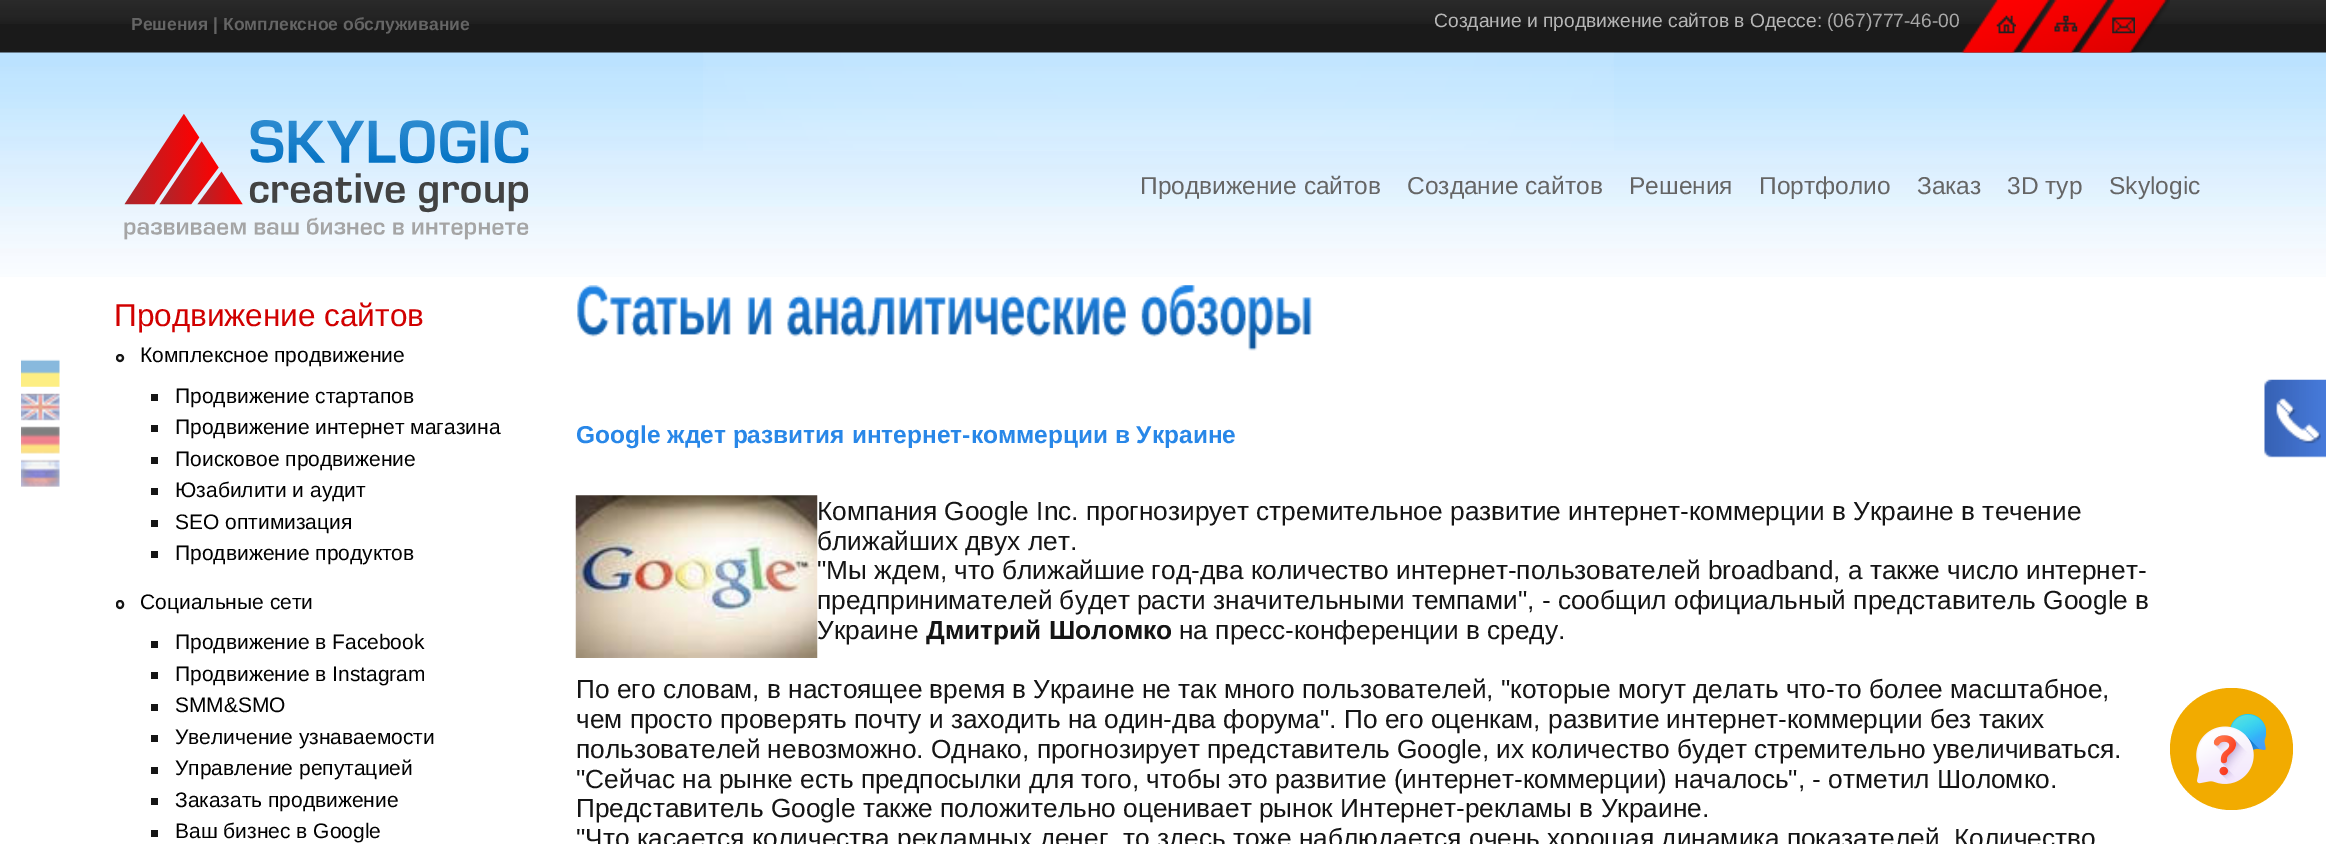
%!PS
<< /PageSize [2326 844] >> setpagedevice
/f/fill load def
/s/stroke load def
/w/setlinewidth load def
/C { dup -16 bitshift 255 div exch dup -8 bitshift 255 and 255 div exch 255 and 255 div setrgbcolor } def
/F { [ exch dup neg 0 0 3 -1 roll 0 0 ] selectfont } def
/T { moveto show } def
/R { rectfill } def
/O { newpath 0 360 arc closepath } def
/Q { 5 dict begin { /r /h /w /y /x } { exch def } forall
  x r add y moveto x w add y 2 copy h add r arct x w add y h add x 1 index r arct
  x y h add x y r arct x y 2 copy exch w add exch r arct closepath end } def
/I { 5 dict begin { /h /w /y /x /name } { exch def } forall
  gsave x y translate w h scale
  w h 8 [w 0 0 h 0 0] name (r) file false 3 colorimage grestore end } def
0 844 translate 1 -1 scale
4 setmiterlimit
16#1A1A1A C
0 0 2326 844 R
16#FFFFFF C
0 277 2326 567 R
(1.rgb) 21 359 39 28 I
(2.rgb) 21 393 39 28 I
(3.rgb) 21 426 39 28 I
(4.rgb) 21 459 39 28 I
(5.rgb) 0 0 2326 24 I
/LiberationSans-Bold 17.5 F
16#656565 C
(Решения | Комплексное обслуживание) 131 30 T
/LiberationSans-Regular 19.25 F
16#B6B6B6 C
(Создание и продвижение сайтов в Одессе:) 1434 27 T
16#A8A8A8 C
(\(067\)777-46-00) 1827 27 T
(10.rgb) 0 52 2326 225 I
(6.rgb) 1961 0 209 53 I
(7.rgb) 1996 15 20 19 I
(8.rgb) 2054 15 24 17 I
(9.rgb) 2112 17 23 17 I
(11.rgb) 703 52 911 99 I
(12.rgb) 124 114 405 126 I
/LiberationSans-Regular 24.5 F
16#656565 C
(Продвижение сайтов) 1140 194 T
(Создание сайтов) 1407 194 T
(Решения) 1629 194 T
(Портфолио) 1759 194 T
(Заказ) 1917 194 T
(3D тур) 2007 194 T
(Skylogic) 2109 194 T
/LiberationSans-Regular 31.5 F
16#D10000 C
(Продвижение сайтов) 114 326 T
16#151515 C
2 w
120 358 3 O s
/LiberationSans-Regular 21 F
16#010101 C
(Комплексное продвижение) 140 362 T
16#151515 C
151 394 7 7 R
16#010101 C
(Продвижение стартапов) 175 403 T
16#151515 C
151 425 7 7 R
16#010101 C
(Продвижение интернет магазина) 175 434 T
16#151515 C
151 457 7 7 R
16#010101 C
(Поисковое продвижение) 175 466 T
16#151515 C
151 488 7 7 R
16#010101 C
(Юзабилити и аудит) 175 497 T
16#151515 C
151 520 7 7 R
16#010101 C
(SEO оптимизация) 175 529 T
16#151515 C
151 551 7 7 R
16#010101 C
(Продвижение продуктов) 175 560 T
16#151515 C
117 601 6 7 3 Q s
16#010101 C
(Социальные сети) 140 609 T
16#151515 C
151 641 7 7 R
16#010101 C
(Продвижение в Facebook) 175 649 T
16#151515 C
151 672 7 7 R
16#010101 C
(Продвижение в Instagram) 175 681 T
16#151515 C
151 704 7 7 R
16#010101 C
(SMM&SMO) 175 712 T
16#151515 C
151 735 7 7 R
16#010101 C
(Увеличение узнаваемости) 175 744 T
16#151515 C
151 767 7 7 R
16#010101 C
(Управление репутацией) 175 775 T
16#151515 C
151 798 7 7 R
16#010101 C
(Заказать продвижение) 175 807 T
16#151515 C
151 830 7 7 R
16#010101 C
(Ваш бизнес в Google) 175 838 T
(13.rgb) 577 285 735 66 I
/LiberationSans-Bold 24.5 F
16#2887E8 C
(Google ждет развития интернет-коммерции в Украине) 576 443 T
(14.rgb) 575 495 243 163 I
/LiberationSans-Regular 26.25 F
16#151515 C
(Компания Google Inc. прогнозирует стремительное развитие интернет-коммерции в Украине в течение) 817 520 T
(ближайших двух лет.) 817 550 T
("Мы ждем, что ближайшие год-два количество интернет-пользователей broadband, а также число интернет-) 817 579 T
(предпринимателей будет расти значительными темпами", - сообщил официальный представитель Google в) 817 609 T
(Украине) 817 639 T
/LiberationSans-Bold 26.25 F
(Дмитрий Шоломко) 926 639 T
/LiberationSans-Regular 26.25 F
(на пресс-конференции в среду.) 1179 639 T
(По его словам, в настоящее время в Украине не так много пользователей, "которые могут делать что-то более масштабное,) 576 698 T
(чем просто проверять почту и заходить на один-два форума". По его оценкам, развитие интернет-коммерции без таких) 576 728 T
(пользователей невозможно. Однако, прогнозирует представитель Google, их количество будет стремительно увеличиваться.) 576 758 T
("Сейчас на рынке есть предпосылки для того, чтобы это развитие \(интернет-коммерции\) началось", - отметил Шоломко.) 576 788 T
(Представитель Google также положительно оценивает рынок Интернет-рекламы в Украине.) 576 817 T
("Что касается количества рекламных денег, то здесь тоже наблюдается очень хорошая динамика показателей. Количество) 576 847 T
(15.rgb) 2264 379 62 79 I
16#F2AB00 C
2170 688 123 122 61 Q f
(16.rgb) 2196 714 70 70 I
showpage
